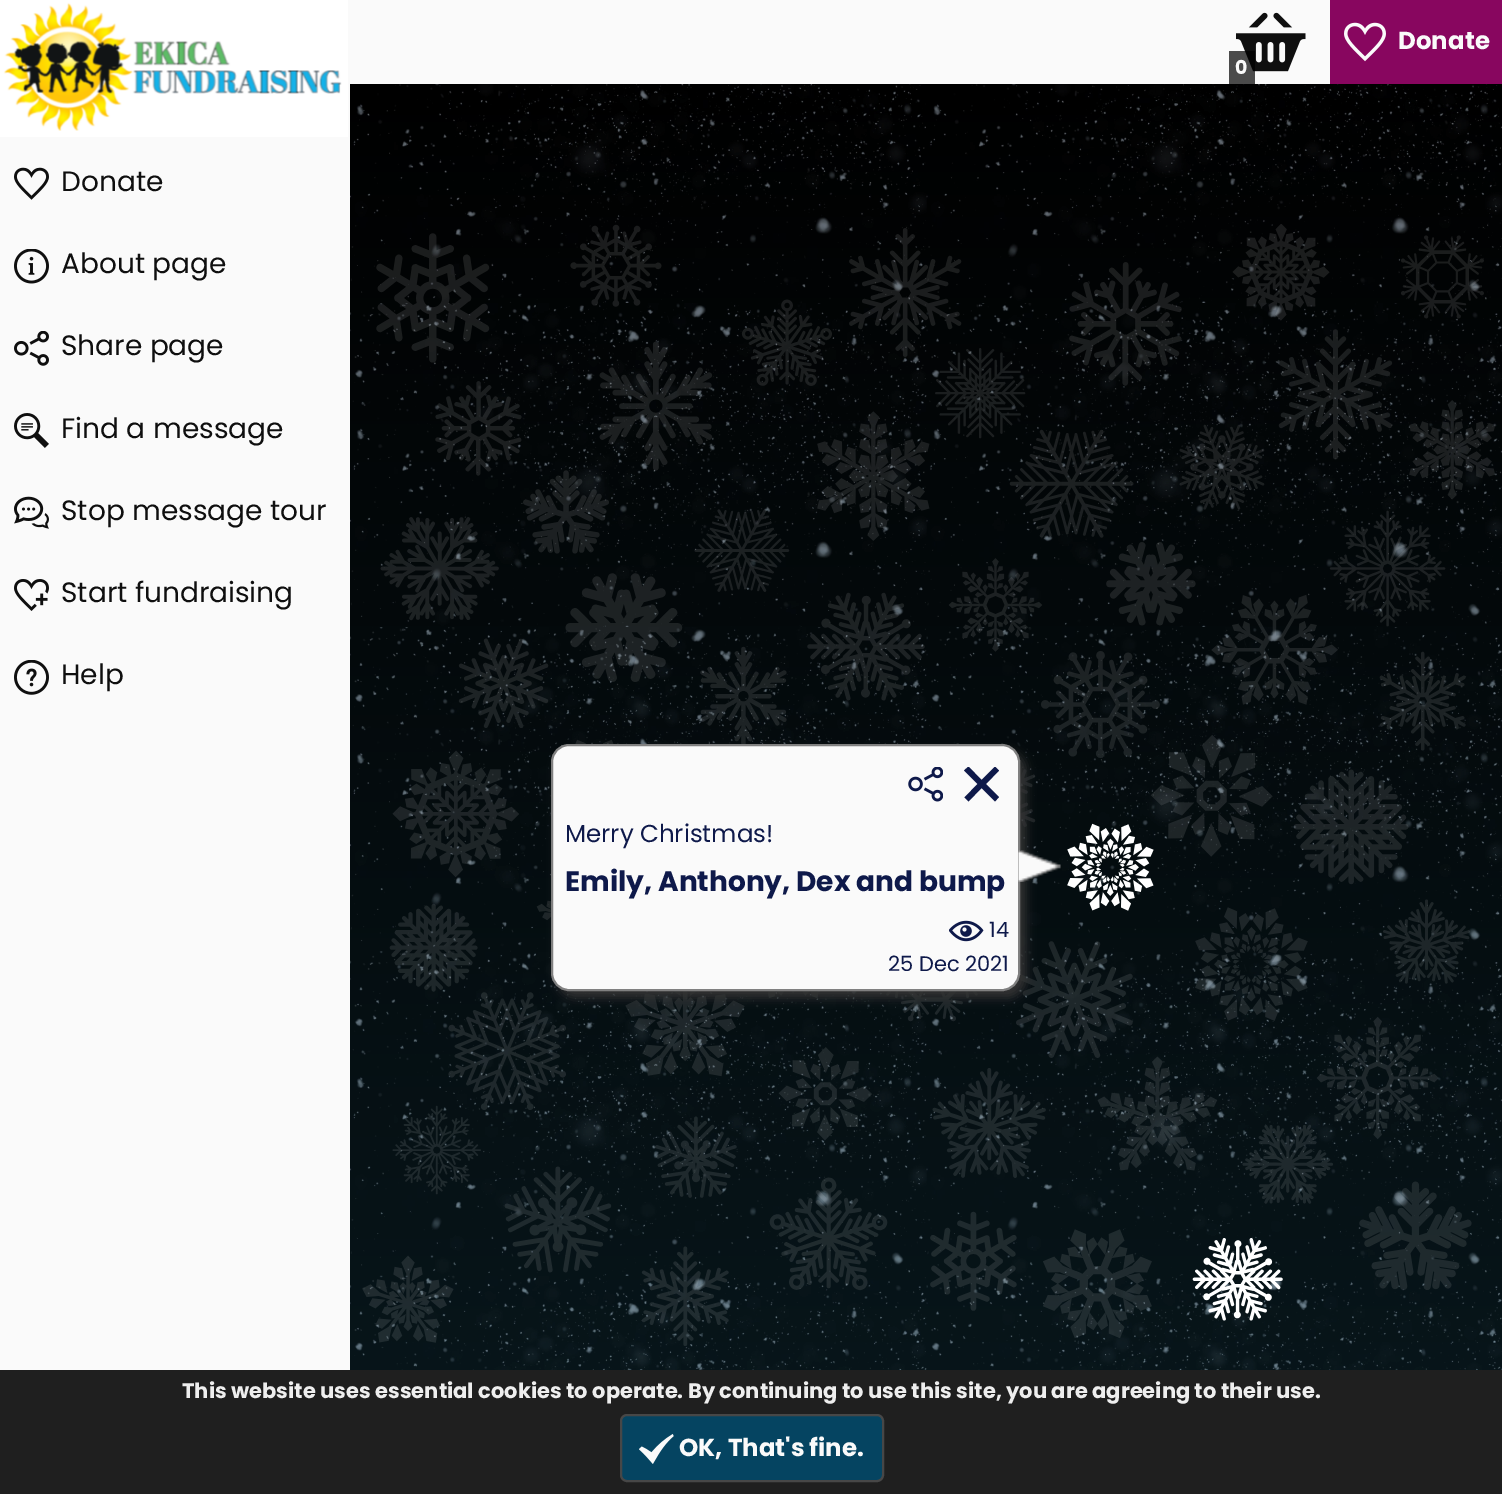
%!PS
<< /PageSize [1502 1494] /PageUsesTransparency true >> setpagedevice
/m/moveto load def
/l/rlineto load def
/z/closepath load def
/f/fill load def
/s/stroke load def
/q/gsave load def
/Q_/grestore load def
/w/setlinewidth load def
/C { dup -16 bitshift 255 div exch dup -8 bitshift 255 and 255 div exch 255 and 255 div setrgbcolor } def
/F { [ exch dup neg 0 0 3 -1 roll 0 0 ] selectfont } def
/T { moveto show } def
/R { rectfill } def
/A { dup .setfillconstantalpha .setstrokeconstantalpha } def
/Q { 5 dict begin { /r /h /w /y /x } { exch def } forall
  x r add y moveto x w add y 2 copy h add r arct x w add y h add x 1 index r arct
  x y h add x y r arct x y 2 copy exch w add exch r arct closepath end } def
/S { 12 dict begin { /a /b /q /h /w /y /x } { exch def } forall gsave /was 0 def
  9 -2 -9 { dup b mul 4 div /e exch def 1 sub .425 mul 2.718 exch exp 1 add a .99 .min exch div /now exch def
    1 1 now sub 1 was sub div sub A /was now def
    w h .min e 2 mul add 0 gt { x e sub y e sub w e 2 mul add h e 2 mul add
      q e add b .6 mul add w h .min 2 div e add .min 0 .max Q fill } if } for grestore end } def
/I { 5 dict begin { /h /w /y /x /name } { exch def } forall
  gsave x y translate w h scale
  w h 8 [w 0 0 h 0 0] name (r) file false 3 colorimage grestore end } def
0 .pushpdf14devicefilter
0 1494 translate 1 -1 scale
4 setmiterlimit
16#FAFAFA C
0 0 1502 1494 R
16#88065F C
1330 0 172 84 R
(1.rgb) 1344 22 42 40 I
/Poppins-Bold 24.5 F
16#FAFAFA C
(Donate) 1398 49 T
(2.rgb) 1236 12 70 60 I
0.7 A
16#000000 C
1229 51 26 33 R
/Poppins-Bold 19 F
1 A
16#FAFAFA C
(0) 1235 74 T
(3.rgb) 0 0 348 137 I
(4.rgb) 14 167 35 33 I
/Poppins-Regular 28 F
16#0F0F0F C
(Donate) 61 191 T
(5.rgb) 14 249 35 35 I
(About page) 61 273 T
(6.rgb) 14 331 35 35 I
(Share page) 61 355 T
(7.rgb) 14 413 35 35 I
(Find a message) 61 438 T
(8.rgb) 14 496 35 33 I
(Stop message tour) 61 520 T
(9.rgb) 14 579 35 32 I
(Start fundraising) 61 602 T
(10.rgb) 14 660 35 35 I
(Help) 61 684 T
q 350 84 m 1152 0 l 0 1286 l -1152 0 l z clip newpath
<< /ShadingType 2 /ColorSpace /DeviceRGB /Coords [927 84 927 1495] /Extend [true true] /Function << /FunctionType 2 /Domain [0 1] /C0 [0 0 0] /C1 [.075 .22 .271] /N 1 >> >> shfill Q_
(11.rgb) 350 84 1152 1286 I
(12.rgb) 362 224 1133 1122 I
16#333333 C
557 751 469 247 18 5 1 S
16#FAFAFA C
552 745 467 245 17 Q q f Q_
16#808080 C
2 w
s
(13.rgb) 908 767 35 35 I
q
964 767 35 35 rectclip
16#0E194A C
999 797 m -13 -13 l 13 -13.5 l -4 -4 l -13.5 13.5 l -13 -13.5 l -4.5 4 l 13.5 13.5 l -13 13.5 l 4 4 l 13 -13.5 l 13.5 13.5 l z f
Q_
/Poppins-Regular 24.5 F
16#0E194A C
(Merry Christmas!) 565 842 T
/Poppins-Bold 28 F
(Emily, Anthony, Dex and bump) 565 891 T
(14.rgb) 949 920 35 22 I
/Poppins-Regular 21 F
(14) 989 937 T
(25 Dec 2021) 888 971 T
(15.rgb) 1018 850 43 32 I
16#1F1F1F C
0 1370 1502 124 R
/Poppins-Bold 21 F
16#EEEEEE C
(This website uses essential cookies to operate. By continuing to use this site, you are agreeing to their use.) 182 1398 T
16#054461 C
621 1415 262 66 6 Q q f Q_
16#474747 C
s
(16.rgb) 639 1434 35 30 I
/Poppins-Bold 24.5 F
16#FAFAFA C
(OK, That's fine.) 679 1456 T
.poppdf14devicefilter showpage
